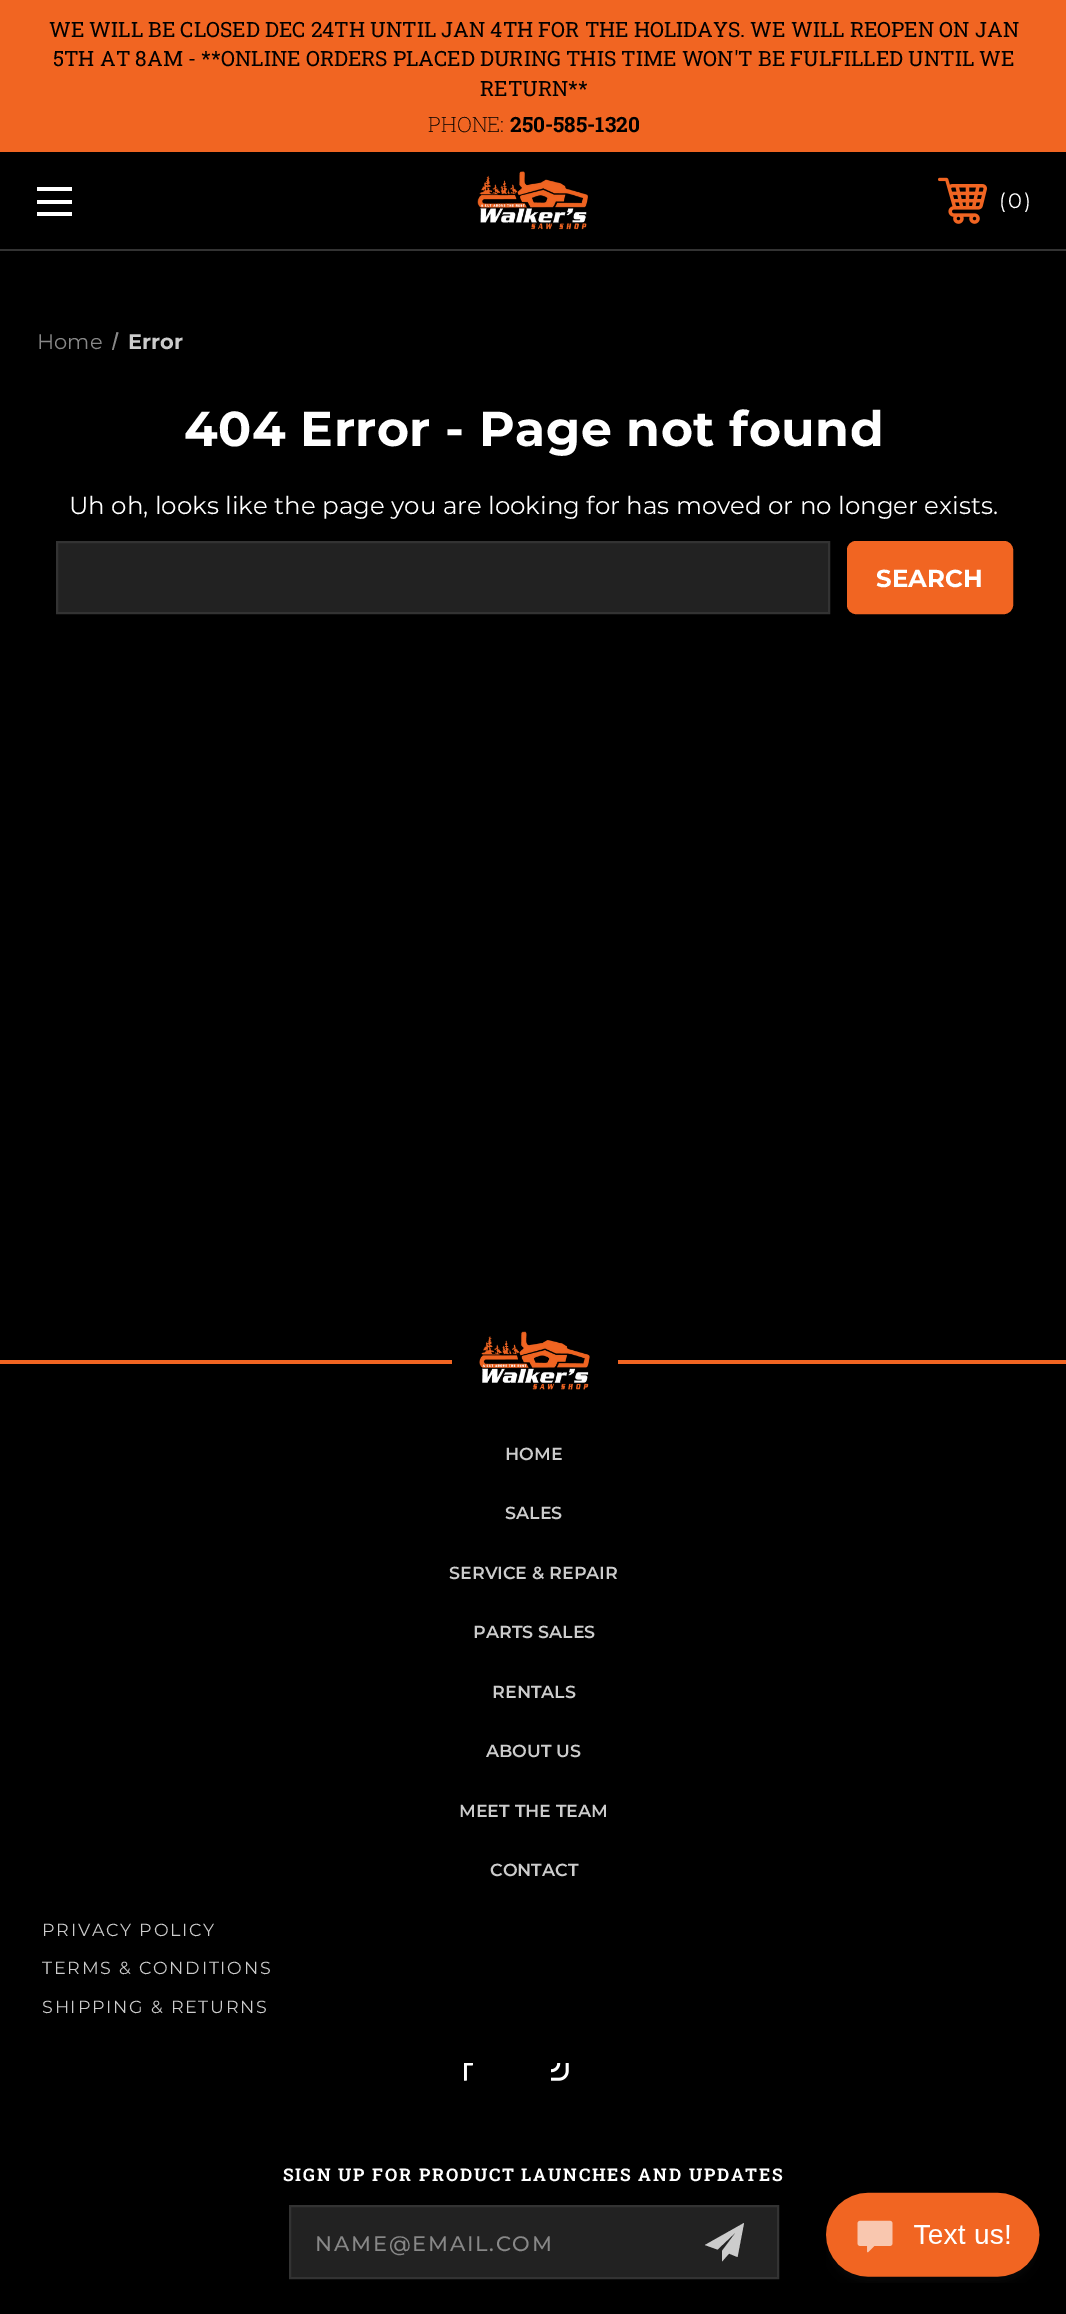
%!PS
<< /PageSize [1066 2314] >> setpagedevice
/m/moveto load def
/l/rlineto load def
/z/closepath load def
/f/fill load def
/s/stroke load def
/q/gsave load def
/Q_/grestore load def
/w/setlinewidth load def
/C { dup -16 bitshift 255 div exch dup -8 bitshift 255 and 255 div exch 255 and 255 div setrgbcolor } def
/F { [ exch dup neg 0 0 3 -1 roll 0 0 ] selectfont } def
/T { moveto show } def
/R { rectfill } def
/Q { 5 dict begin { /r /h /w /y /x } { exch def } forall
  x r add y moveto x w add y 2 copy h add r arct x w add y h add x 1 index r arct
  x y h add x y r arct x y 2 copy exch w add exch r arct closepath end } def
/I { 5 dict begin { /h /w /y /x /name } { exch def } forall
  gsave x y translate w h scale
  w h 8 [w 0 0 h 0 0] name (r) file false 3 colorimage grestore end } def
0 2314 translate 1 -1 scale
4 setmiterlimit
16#000000 C
0 0 1066 2314 R
16#F16522 C
0 0 1066 152 R
/RobotoSlab-Regular 21 F
16#000000 C
(WE WILL BE CLOSED DEC 24TH UNTIL JAN 4TH FOR THE HOLIDAYS. WE WILL REOPEN ON JAN) 49 37 T
(5TH AT 8AM - **ONLINE ORDERS PLACED DURING THIS TIME WON'T BE FULFILLED UNTIL WE) 53 66 T
(RETURN**) 480 96 T
/RobotoSlab-ExtraLight 21 F
(PHONE:) 428 132 T
/RobotoSlab-Bold 21 F
(250-585-1320) 510 132 T
16#333333 C
0 249 1066 2 R
16#FFFFFF C
37 200 35 4 R
37 187 35 4 R
37 212 35 4 R
(1.rgb) 477 171 111 59 I
(2.rgb) 938 177 49 47 I
/Montserrat-Regular 21 F
(\() 999 208 T
(0) 1008 208 T
(\)) 1024 208 T
16#888888 C
(Home) 37 349 T
116.5 332 m 2 .5 l -5 17.5 l -1.5 0 l z f
/Montserrat-Bold 21 F
16#CCCCCC C
(Error) 128 349 T
/Montserrat-Bold 49 F
16#FFFFFF C
184 446 m .45 0 (404 Error - Page not found) ashow
/Montserrat-Regular 24.5 F
(Uh oh, looks like the page you are looking for has moved or no longer exists.) 69 514 T
16#222222 C
57 542 m 772 0 l 0 71 l -772 0 l z q f Q_
16#333333 C
2 w
s
16#F16522 C
848 542 164 71 8 Q q f Q_
s
/Montserrat-Bold 24.5 F
16#FFFFFF C
(SEARCH) 876 587 T
16#F16522 C
0 1360 1066 4 R
16#000000 C
452 1360 166 4 R
(3.rgb) 479 1331 111 59 I
/Montserrat-SemiBold 17.5 F
16#CCCCCC C
(HOME) 505 1460 T
(SALES) 505 1519 T
(SERVICE & REPAIR) 449 1579 T
(PARTS SALES) 473 1638 T
(RENTALS) 492 1698 T
(ABOUT US) 486 1757 T
(MEET THE TEAM) 459 1817 T
(CONTACT) 490 1876 T
/Montserrat-Regular 17.5 F
42 1936 m 1.75 0 (PRIVACY POLICY) ashow
42 1974 m 1.75 0 (TERMS & CONDITIONS) ashow
42 2013 m 1.75 0 (SHIPPING & RETURNS) ashow
(4.rgb) 464 2063 9 18 I
(5.rgb) 551 2063 18 18 I
/RobotoSlab-Bold 17.5 F
16#FFFFFF C
283 2181 m 1.75 0 (SIGN UP FOR PRODUCT LAUNCHES AND UPDATES) ashow
16#222222 C
290 2206 m 488 0 l 0 72 l -488 0 l z q f Q_
16#333333 C
s
/Montserrat-Medium 21 F
16#888888 C
315 2251 m 1.75 0 (NAME@EMAIL.COM) ashow
16#CCCCCC C
744 2223 m -39 22 l 12.5 4.5 l 19 -18 l -14.5 19.5 l 0 10.5 l 7 -8 l 8.5 3.5 l z f
(6.rgb) 826 2192 214 91 I
showpage
